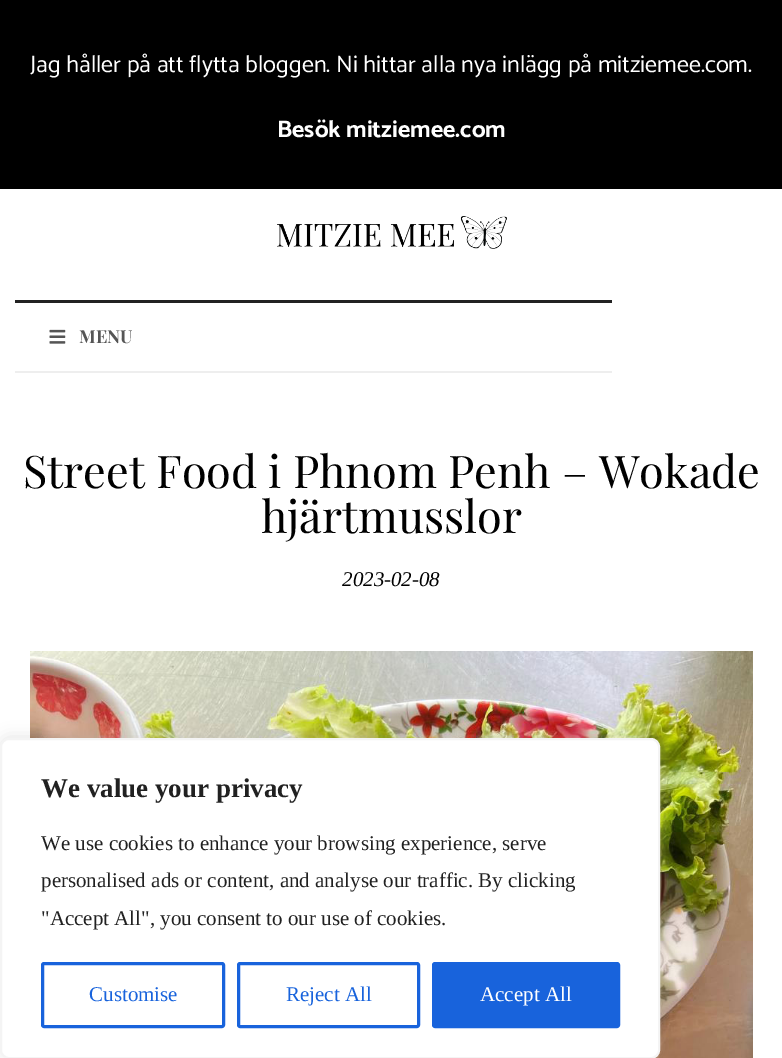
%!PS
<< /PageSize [782 1058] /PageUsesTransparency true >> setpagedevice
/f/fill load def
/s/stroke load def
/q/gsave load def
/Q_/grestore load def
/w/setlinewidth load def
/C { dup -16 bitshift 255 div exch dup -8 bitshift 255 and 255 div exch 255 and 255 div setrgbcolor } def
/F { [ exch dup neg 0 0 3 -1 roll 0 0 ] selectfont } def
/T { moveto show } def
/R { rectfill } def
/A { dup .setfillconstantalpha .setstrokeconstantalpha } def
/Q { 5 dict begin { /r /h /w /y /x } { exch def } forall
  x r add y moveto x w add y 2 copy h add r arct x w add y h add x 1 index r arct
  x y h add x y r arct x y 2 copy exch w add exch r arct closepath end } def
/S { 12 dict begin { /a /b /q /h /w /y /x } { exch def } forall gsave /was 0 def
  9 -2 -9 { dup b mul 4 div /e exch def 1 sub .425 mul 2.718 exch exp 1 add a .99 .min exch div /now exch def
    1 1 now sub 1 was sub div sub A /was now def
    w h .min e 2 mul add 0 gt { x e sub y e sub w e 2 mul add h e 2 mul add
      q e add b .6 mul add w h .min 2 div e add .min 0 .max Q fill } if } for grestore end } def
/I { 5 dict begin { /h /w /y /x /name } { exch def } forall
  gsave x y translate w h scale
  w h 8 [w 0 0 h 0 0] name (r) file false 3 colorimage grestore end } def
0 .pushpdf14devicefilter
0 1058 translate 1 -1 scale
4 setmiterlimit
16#FFFFFF C
0 0 782 1058 R
16#000000 C
0 0 782 189 R
/Catamaran-Regular 24 F
16#FFFFFF C
(Jag håller på att flytta bloggen. Ni hittar alla nya inlägg på mitziemee.com.) 30 72 T
/Catamaran-Bold 24 F
(Besök mitziemee.com) 277 137 T
(1.rgb) 277 216 230 33 I
16#222222 C
15 300 597 3 R
16#EEEEEE C
15 371 597 2 R
(2.rgb) 49 329 17 15 I
/PlayfairDisplay-Bold 18 F
16#555555 C
(MENU) 79 343 T
/PlayfairDisplay-Regular 45 F
16#000000 C
(Street Food i Phnom Penh – Wokade) 23 488 T
(hjärtmusslor) 261 533 T
/LiberationSerif-Italic 21 F
(2023-02-08) 342 586 T
(3.rgb) 30 651 723 407 I
16#ACABAB C
0 737 660 321 9 7.5 .3 S
16#FFFFFF C
1 739 658 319 8 Q q f Q_
16#F4F4F4 C
2 w
s
/LiberationSerif-Bold 27 F
16#212121 C
(We value your privacy) 41 797 T
/LiberationSerif-Regular 21 F
(We use cookies to enhance your browsing experience, serve) 41 850 T
(personalised ads or content, and analyse our traffic. By clicking) 41 887 T
("Accept All", you consent to our use of cookies.) 41 925 T
16#1863DC C
3 w
42.5 963.5 181 63 1.5 Q s
(Customise) 89 1001 T
238.5 963.5 180 63 1.5 Q s
(Reject All) 286 1001 T
433.5 963.5 185 63 1.5 Q q f Q_
s
16#FFFFFF C
(Accept All) 480 1001 T
.poppdf14devicefilter showpage
